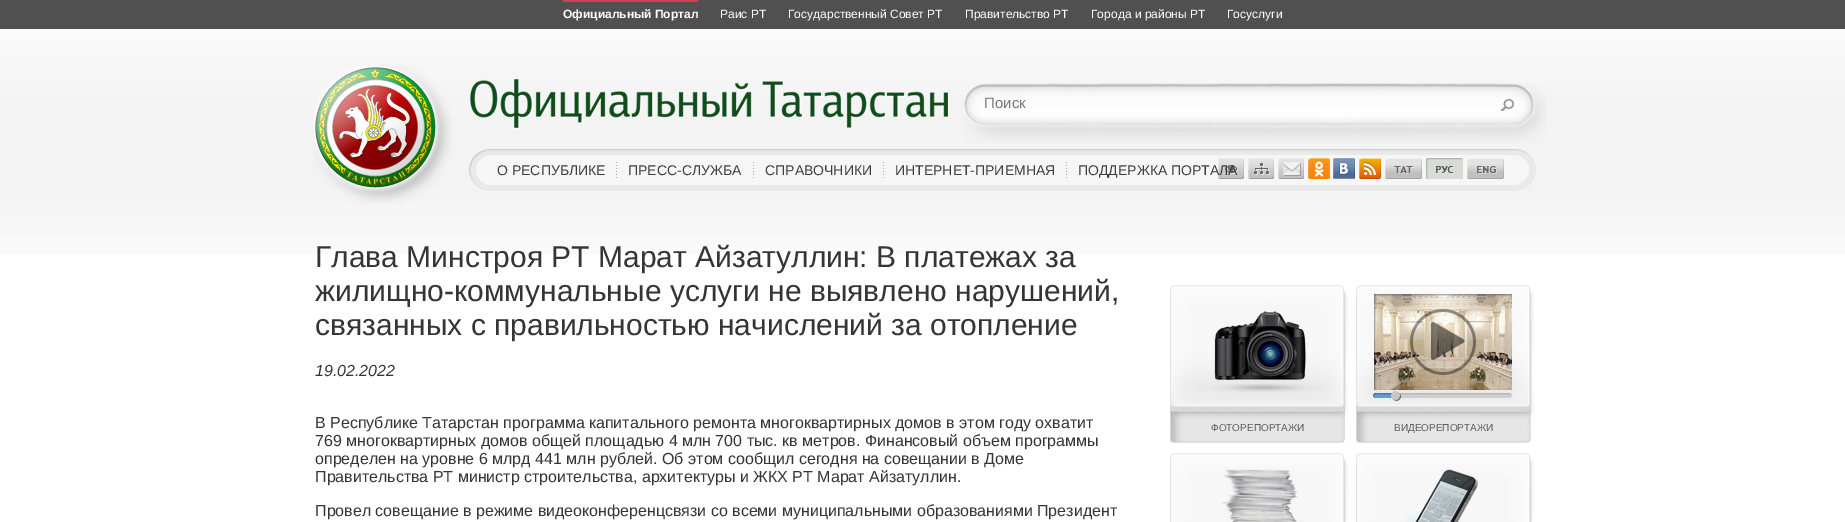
%!PS
<< /PageSize [1845 522] >> setpagedevice
/C { dup -16 bitshift 255 div exch dup -8 bitshift 255 and 255 div exch 255 and 255 div setrgbcolor } def
/F { [ exch dup neg 0 0 3 -1 roll 0 0 ] selectfont } def
/T { moveto show } def
/R { rectfill } def
/I { 5 dict begin { /h /w /y /x /name } { exch def } forall
  gsave x y translate w h scale
  w h 8 [w 0 0 h 0 0] name (r) file false 3 colorimage grestore end } def
0 522 translate 1 -1 scale
4 setmiterlimit
16#FFFFFF C
0 0 1845 522 R
(1.rgb) 0 29 1845 225 I
16#505050 C
0 0 1845 29 R
16#D93C59 C
563 0 135 2 R
/LiberationSans-Bold 12 F
16#FFFFFF C
(Официальный Портал) 563 18 T
/LiberationSans-Regular 12 F
(Раис РТ) 720 18 T
(Государственный Совет РТ) 788 18 T
(Правительство РТ) 965 18 T
(Города и районы РТ) 1091 18 T
(Госуслуги) 1227 18 T
(2.rgb) 313 64 139 140 I
(3.rgb) 470 79 479 50 I
(4.rgb) 964 83 583 59 I
/LiberationSans-Regular 15 F
16#757575 C
(Поиск) 984 108 T
(5.rgb) 1501 99 13 12 I
(6.rgb) 488 149 1029 42 I
(7.rgb) 469 149 19 42 I
(8.rgb) 1517 149 19 42 I
/LiberationSans-Regular 14 F
16#3E3E3E C
(О РЕСПУБЛИКЕ) 497 175 T
(9.rgb) 616 162 1 16 I
(ПРЕСС-СЛУЖБА) 628 175 T
(9.rgb) 753 162 1 16 I
(СПРАВОЧНИКИ) 765 175 T
(9.rgb) 883 162 1 16 I
(ИНТЕРНЕТ-ПРИЕМНАЯ) 895 175 T
(9.rgb) 1066 162 1 16 I
(10.rgb) 1218 158 26 21 I
(ПОДДЕРЖКА ПОРТАЛА) 1078 175 T
(11.rgb) 1248 158 26 21 I
(12.rgb) 1278 158 26 21 I
(13.rgb) 1308 158 22 21 I
(14.rgb) 1333 158 22 21 I
(15.rgb) 1359 158 22 21 I
(16.rgb) 1385 158 37 21 I
(17.rgb) 1426 158 37 21 I
(18.rgb) 1467 158 37 21 I
/LiberationSans-Regular 30 F
16#353535 C
(Глава Минстроя РТ Марат Айзатуллин: В платежах за) 315 267 T
(жилищно-коммунальные услуги не выявлено нарушений,) 315 301 T
(связанных с правильностью начислений за отопление) 315 335 T
/LiberationSans-Italic 16 F
(19.02.2022) 315 376 T
/LiberationSans-Regular 16 F
(В Республике Татарстан программа капитального ремонта многоквартирных домов в этом году охватит) 315 428 T
(769 многоквартирных домов общей площадью 4 млн 700 тыс. кв метров. Финансовый объем программы) 315 446 T
(определен на уровне 6 млрд 441 млн рублей. Об этом сообщил сегодня на совещании в Доме) 315 464 T
(Правительства РТ министр строительства, архитектуры и ЖКХ РТ Марат Айзатуллин.) 315 482 T
(Провел совещание в режиме видеоконференцсвязи со всеми муниципальными образованиями Президент) 315 516 T
(19.rgb) 1344 290 4 151 I
(20.rgb) 1170 285 174 128 I
(21.rgb) 1170 413 174 30 I
/LiberationSans-Regular 10 F
16#5F5F5F C
(ФОТОРЕПОРТАЖИ) 1211 431 T
(19.rgb) 1530 290 4 151 I
(22.rgb) 1356 285 174 128 I
(21.rgb) 1356 413 174 30 I
(ВИДЕОРЕПОРТАЖИ) 1394 431 T
(23.rgb) 1344 458 4 64 I
(24.rgb) 1170 453 174 69 I
(23.rgb) 1530 458 4 64 I
(25.rgb) 1356 453 174 69 I
showpage
